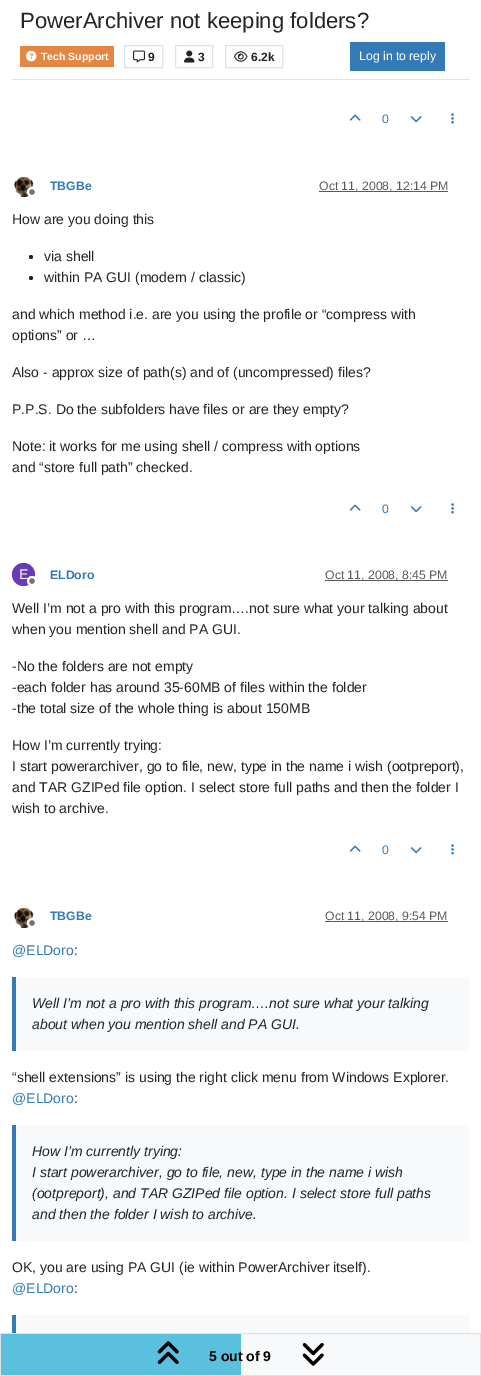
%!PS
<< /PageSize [481 1376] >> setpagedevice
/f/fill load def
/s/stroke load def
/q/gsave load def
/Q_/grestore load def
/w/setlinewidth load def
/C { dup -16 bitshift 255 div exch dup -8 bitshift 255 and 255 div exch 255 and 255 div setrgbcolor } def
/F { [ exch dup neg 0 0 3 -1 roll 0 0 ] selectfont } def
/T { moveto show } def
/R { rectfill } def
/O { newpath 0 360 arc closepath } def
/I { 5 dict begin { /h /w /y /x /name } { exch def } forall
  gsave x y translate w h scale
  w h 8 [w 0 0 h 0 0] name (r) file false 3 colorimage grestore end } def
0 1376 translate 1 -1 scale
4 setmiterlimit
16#FFFFFF C
0 0 481 1376 R
16#DEE2E6 C
12 79 457 1 R
/LiberationSans-Regular 22.1 F
16#212529 C
(PowerArchiver not keeping folders?) 20 28 T
16#E48743 C
20 46 94 21 R
(1.rgb) 26 50 11 12 I
/LiberationSans-Bold 10.5 F
16#FFFFFF C
(Tech Support) 41 60 T
16#DEE2E6 C
124.5 45.5 38 22 rectstroke
(2.rgb) 133 50 12 13 I
/LiberationSans-Bold 12 F
16#212529 C
(9) 148 61 T
16#DEE2E6 C
175.5 45.5 37 22 rectstroke
(3.rgb) 184 50 11 13 I
16#212529 C
(3) 198 61 T
16#DEE2E6 C
225.5 45.5 57 22 rectstroke
(4.rgb) 234 51 14 11 I
16#212529 C
(6.2k) 251 61 T
16#337AB7 C
350 42 95 29 R
/LiberationSans-Regular 12.25 F
16#FFFFFF C
(Log in to reply) 359 60 T
(5.rgb) 349 114 12 7 I
16#337AB7 C
(0) 382 123 T
(6.rgb) 410 116 12 7 I
(7.rgb) 451 113 3 11 I
(8.rgb) 14 176 20 21 I
16#6C757D C
32 192 4 O q f Q_
16#FFFFFF C
2 w
s
/LiberationSans-Bold 12.25 F
16#337AB7 C
(TBGBe) 50 190 T
16#595C5F C
319 191 129 1 R
/LiberationSans-Regular 12.25 F
16#585B5E C
(Oct 11, 2008, 12:14 PM) 319 190 T
/LiberationSans-Regular 14 F
16#212529 C
(How are you doing this) 12 224 T
31 257 2 O f
(via shell) 44 261 T
31 278 2 O f
(within PA GUI \(modern / classic\)) 44 282 T
(and which method i.e. are you using the profile or “compress with) 12 319 T
(options” or …) 12 340 T
(Also - approx size of path\(s\) and of \(uncompressed\) files?) 12 377 T
(P.P.S. Do the subfolders have files or are they empty?) 12 414 T
(Note: it works for me using shell / compress with options) 12 451 T
(and “store full path” checked.) 12 472 T
(5.rgb) 349 504 12 7 I
/LiberationSans-Regular 12.25 F
16#337AB7 C
(0) 382 513 T
(6.rgb) 410 506 12 7 I
(7.rgb) 451 503 3 11 I
16#673AB7 C
23.5 574.5 11.5 O f
/LiberationSans-Regular 14 F
16#FFFFFF C
(E) 19 579 T
16#6C757D C
32 581 4 O q f Q_
16#FFFFFF C
s
/LiberationSans-Bold 12.25 F
16#337AB7 C
(ELDoro) 50 579 T
16#595C5F C
325 580 123 1 R
/LiberationSans-Regular 12.25 F
16#585B5E C
(Oct 11, 2008, 8:45 PM) 325 579 T
/LiberationSans-Regular 14 F
16#212529 C
(Well I’m not a pro with this program….not sure what your talking about) 12 613 T
(when you mention shell and PA GUI.) 12 634 T
(-No the folders are not empty) 12 671 T
(-each folder has around 35-60MB of files within the folder) 12 692 T
(-the total size of the whole thing is about 150MB) 12 713 T
(How I’m currently trying:) 12 750 T
(I start powerarchiver, go to file, new, type in the name i wish \(ootpreport\),) 12 771 T
(and TAR GZIPed file option. I select store full paths and then the folder I) 12 792 T
(wish to archive.) 12 813 T
(5.rgb) 349 845 12 7 I
/LiberationSans-Regular 12.25 F
16#337AB7 C
(0) 382 854 T
(6.rgb) 410 847 12 7 I
(7.rgb) 451 844 3 11 I
(8.rgb) 14 907 20 21 I
16#6C757D C
32 923 4 O q f Q_
16#FFFFFF C
s
/LiberationSans-Bold 12.25 F
16#337AB7 C
(TBGBe) 50 920 T
16#595C5F C
325 921 123 1 R
/LiberationSans-Regular 12.25 F
16#585B5E C
(Oct 11, 2008, 9:54 PM) 325 920 T
/LiberationSans-Regular 14 F
16#337AB7 C
(@ELDoro) 12 955 T
16#212529 C
(:) 74 955 T
16#F8F9FA C
16 977 453 74 R
16#337AB7 C
12 977 4 74 R
/LiberationSans-Italic 14 F
16#212529 C
(Well I’m not a pro with this program….not sure what your talking) 32 1008 T
(about when you mention shell and PA GUI.) 32 1029 T
/LiberationSans-Regular 14 F
(“shell extensions” is using the right click menu from Windows Explorer.) 12 1082 T
16#337AB7 C
(@ELDoro) 12 1103 T
16#212529 C
(:) 74 1103 T
16#F8F9FA C
16 1125 453 116 R
16#337AB7 C
12 1125 4 116 R
/LiberationSans-Italic 14 F
16#212529 C
(How I’m currently trying:) 32 1156 T
(I start powerarchiver, go to file, new, type in the name i wish) 32 1177 T
(\(ootpreport\), and TAR GZIPed file option. I select store full paths) 32 1198 T
(and then the folder I wish to archive.) 32 1219 T
/LiberationSans-Regular 14 F
(OK, you are using PA GUI \(ie within PowerArchiver itself\).) 12 1272 T
16#337AB7 C
(@ELDoro) 12 1293 T
16#212529 C
(:) 74 1293 T
16#F8F9FA C
16 1315 453 18 R
16#337AB7 C
12 1315 4 18 R
16#F8F9FA C
241 1334 239 41 R
16#DEE2E6 C
1 w
.5 1333.5 480 42 rectstroke
16#5BC0DE C
1 1334 240 41 R
(9.rgb) 157 1341 22 23 I
/LiberationSans-Bold 14 F
16#000000 C
(5 out of 9) 209 1361 T
(10.rgb) 302 1343 22 23 I
showpage
